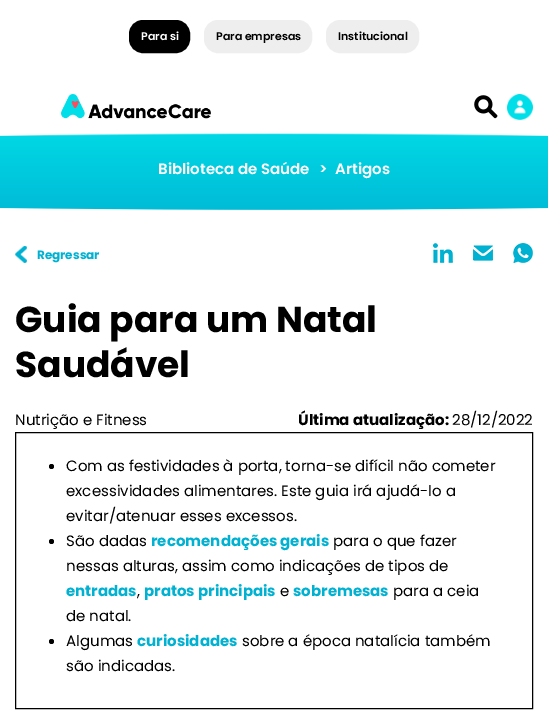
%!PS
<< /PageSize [548 722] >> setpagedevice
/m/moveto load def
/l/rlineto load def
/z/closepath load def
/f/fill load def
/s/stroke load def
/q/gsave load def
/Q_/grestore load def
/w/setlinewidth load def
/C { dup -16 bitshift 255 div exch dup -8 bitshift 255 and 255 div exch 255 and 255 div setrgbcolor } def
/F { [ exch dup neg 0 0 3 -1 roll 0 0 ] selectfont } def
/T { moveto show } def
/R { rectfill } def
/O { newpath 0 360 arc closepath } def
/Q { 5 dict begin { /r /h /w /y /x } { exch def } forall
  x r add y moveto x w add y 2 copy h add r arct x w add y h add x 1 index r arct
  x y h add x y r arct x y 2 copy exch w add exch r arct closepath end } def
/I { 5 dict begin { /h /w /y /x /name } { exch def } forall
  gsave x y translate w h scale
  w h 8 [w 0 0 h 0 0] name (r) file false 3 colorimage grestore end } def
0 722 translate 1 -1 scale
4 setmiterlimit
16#FFFFFF C
0 0 548 722 R
q 0 133 m 548 0 l 0 77 l -548 0 l z clip newpath
<< /ShadingType 2 /ColorSpace /DeviceRGB /Coords [274 114 274 241] /Extend [true true] /Function << /FunctionType 2 /Domain [0 1] /C0 [0 .875 .914] /C1 [0 .694 .82] /N 1 >> >> shfill Q_
(1.rgb) 0 114 548 22 I
16#000000 C
131 22 57 29 12 Q q f Q_
4 w
s
/Poppins-SemiBold 11 F
16#FFFFFF C
(Para si) 141 40 T
16#EEEEEE C
206 22 104 29 12 Q q f Q_
s
16#000000 C
(Para empresas) 216 40 T
16#EEEEEE C
328 22 89 29 12 Q q f Q_
s
16#000000 C
(Institucional) 338 40 T
(2.rgb) 61 94 150 25 I
(3.rgb) 474 95 24 24 I
(4.rgb) 507 94 26 26 I
/Poppins-SemiBold 15 F
16#FFFFFF C
(Biblioteca de Saúde) 158 174 T
(>) 319 174 T
(Artigos) 335 174 T
(5.rgb) 0 208 548 33 I
(6.rgb) 15 246 12 17 I
/Poppins-Bold 12 F
16#00B1D1 C
(Regressar) 37 259 T
(7.rgb) 433 243 20 20 I
(8.rgb) 473 245 20 16 I
(9.rgb) 513 243 20 20 I
/Poppins-Bold 36 F
16#000000 C
(Guia para um Natal) 15 332 T
(Saudável) 15 377 T
/Poppins-Regular 15 F
(Nutrição e Fitness) 15 425 T
/Poppins-Bold 15 F
(Última atualização:) 298 425 T
/Poppins-Regular 15 F
(28/12/2022) 452 425 T
1 w
15.5 432.5 517 276 rectstroke
51.5 466.5 2.5 O f
(Com as festividades à porta, torna-se difícil não cometer) 66 471 T
(excessividades alimentares. Este guia irá ajudá-lo a) 66 496 T
(evitar/atenuar esses excessos.) 66 521 T
51.5 541.5 2.5 O f
(São dadas) 66 546 T
/Poppins-Bold 15 F
16#00B1D1 C
(recomendações gerais) 151 546 T
/Poppins-Regular 15 F
16#000000 C
(para o que fazer) 333 546 T
(nessas alturas, assim como indicações de tipos de) 66 571 T
/Poppins-Bold 15 F
16#00B1D1 C
(entradas) 66 596 T
/Poppins-Regular 15 F
16#000000 C
(,) 137 596 T
/Poppins-Bold 15 F
16#00B1D1 C
(pratos principais) 144 596 T
/Poppins-Regular 15 F
16#000000 C
(e) 280 596 T
/Poppins-Bold 15 F
16#00B1D1 C
(sobremesas) 293 596 T
/Poppins-Regular 15 F
16#000000 C
(para a ceia) 393 596 T
(de natal.) 66 621 T
51.5 641.5 2.5 O f
(Algumas) 66 646 T
/Poppins-Bold 15 F
16#00B1D1 C
(curiosidades) 137 646 T
/Poppins-Regular 15 F
16#000000 C
(sobre a época natalícia também) 242 646 T
(são indicadas.) 66 671 T
showpage
